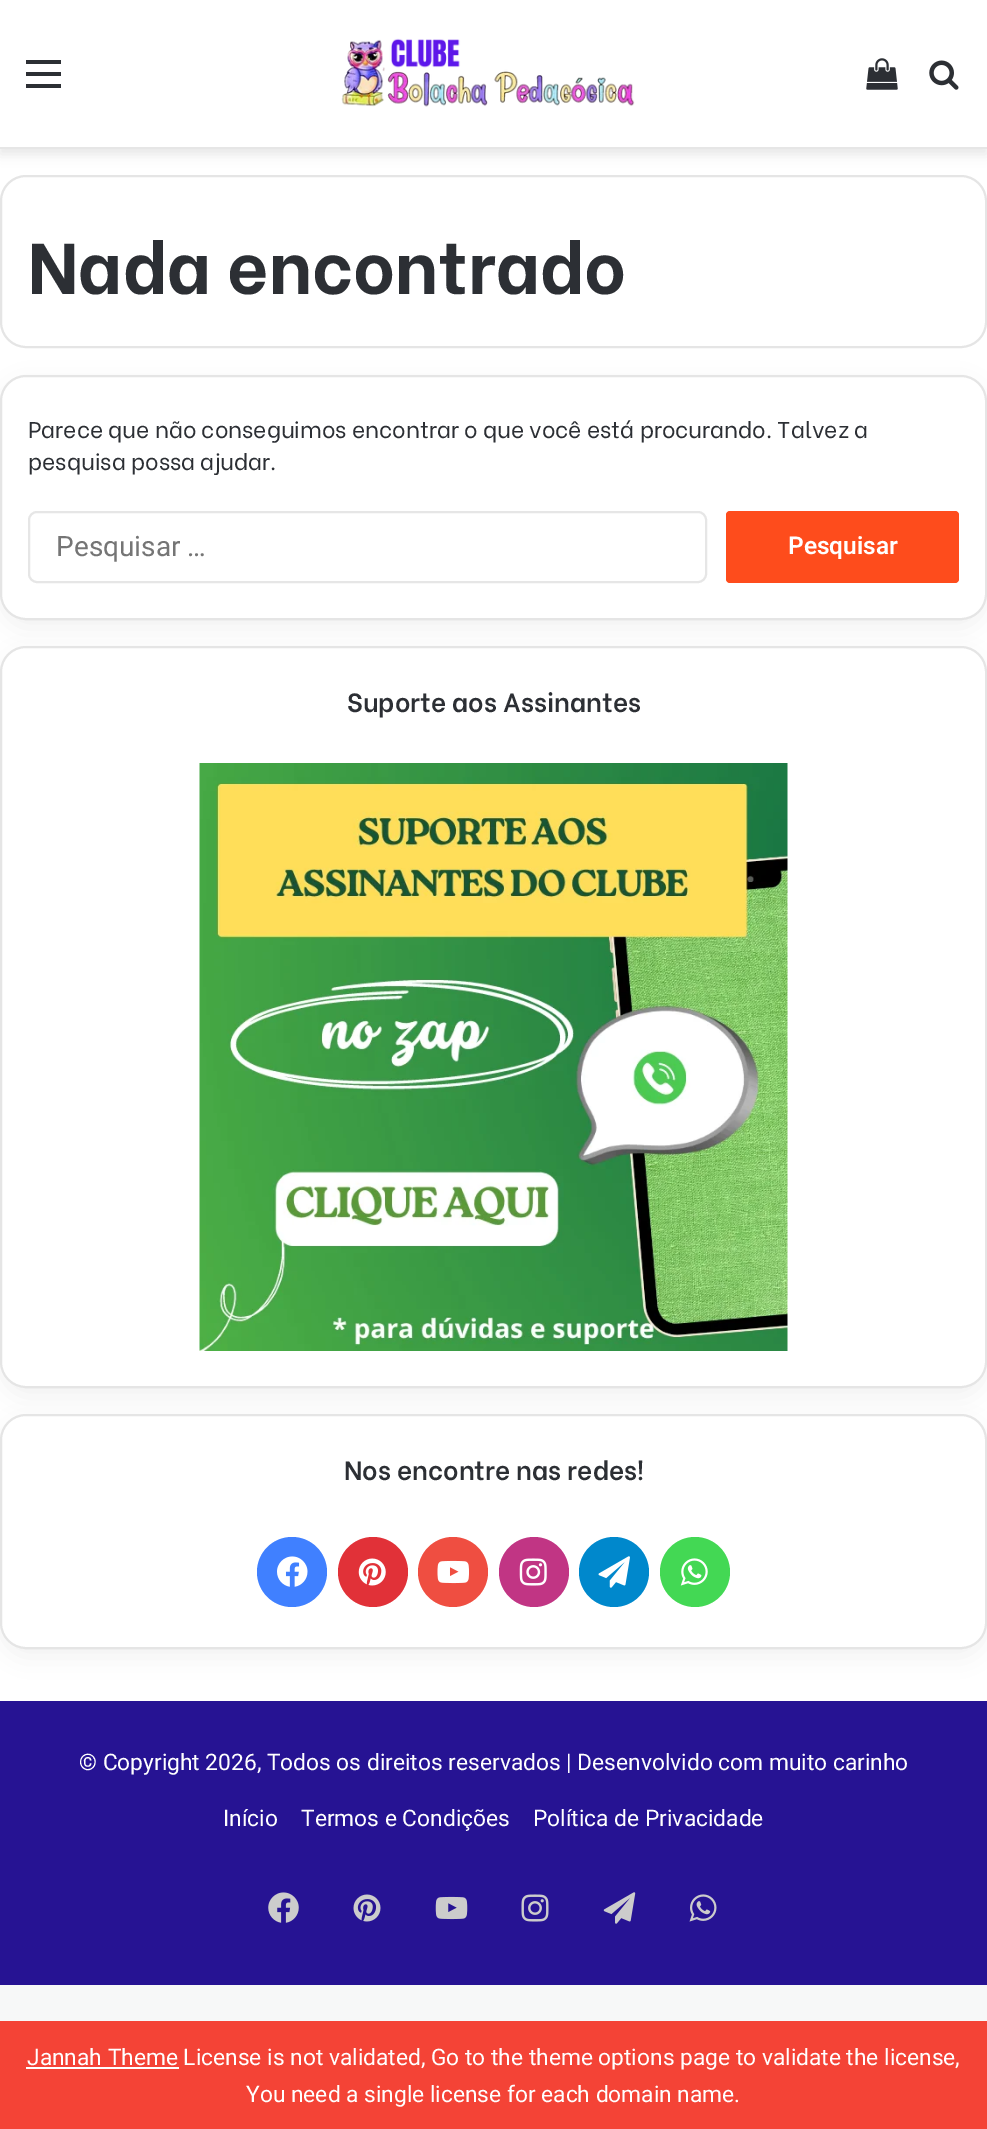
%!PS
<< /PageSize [987 2129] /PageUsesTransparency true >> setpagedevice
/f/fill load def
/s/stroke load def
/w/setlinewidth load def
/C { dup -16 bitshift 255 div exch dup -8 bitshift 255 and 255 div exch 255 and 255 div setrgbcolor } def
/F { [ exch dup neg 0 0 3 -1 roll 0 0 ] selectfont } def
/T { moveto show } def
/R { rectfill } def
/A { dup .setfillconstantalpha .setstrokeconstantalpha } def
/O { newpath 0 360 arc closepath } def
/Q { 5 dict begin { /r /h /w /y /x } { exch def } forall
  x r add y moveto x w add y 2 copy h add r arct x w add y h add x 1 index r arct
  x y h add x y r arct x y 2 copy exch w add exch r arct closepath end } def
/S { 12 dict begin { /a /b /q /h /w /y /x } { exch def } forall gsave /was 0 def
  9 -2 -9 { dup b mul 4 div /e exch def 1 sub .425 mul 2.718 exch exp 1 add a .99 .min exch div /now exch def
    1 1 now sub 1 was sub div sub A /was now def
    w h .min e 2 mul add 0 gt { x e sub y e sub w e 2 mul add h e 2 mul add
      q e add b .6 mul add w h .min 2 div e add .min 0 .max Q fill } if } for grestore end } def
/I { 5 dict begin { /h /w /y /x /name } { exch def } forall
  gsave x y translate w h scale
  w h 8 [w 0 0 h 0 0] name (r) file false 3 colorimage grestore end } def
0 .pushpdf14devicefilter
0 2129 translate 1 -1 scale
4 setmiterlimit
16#F7F8F8 C
0 0 987 2129 R
16#FFFFFF C
0 149 987 1552 R
16#000000 C
0 5 987 149 0 6 .1 S
16#FFFFFF C
0 0 987 147 R
16#E6E6E6 C
0 147 987 2 R
16#2C2F34 C
26 72 35 4 R
26 60 35 4 R
26 84 35 4 R
(1.rgb) 341 38 294 69 I
(2.rgb) 866 58 32 32 I
(3.rgb) 929 60 30 30 I
0.1 A
16#000000 C
2 w
1 176 985 171 25 Q s
/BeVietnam-Bold 71.75 F
1 A
16#2C2F34 C
(Nada encontrado) 28 294 T
16#000000 C
0 383 987 245 26 13 .05 S
16#FFFFFF C
0 375 987 245 26 Q f
0.1 A
16#000000 C
1 376 985 243 25 Q s
/BeVietnam-Regular 22.75 F
1 A
16#2C2F34 C
(Parece que não conseguimos encontrar o que você está procurando. Talvez a) 28 438 T
(pesquisa possa ajudar.) 28 470 T
16#E6E6E6 C
29 512 677 70 8 Q s
/Roboto-Regular 28 F
16#757575 C
(Pesquisar …) 56 556 T
16#FE4C1C C
726 511 233 72 4 Q f
/Roboto-SemiBold 24.5 F
16#FFFFFF C
(Pesquisar) 788 554 T
16#000000 C
0 655 987 742 26 13 .05 S
16#FFFFFF C
0 646 987 742 26 Q f
0.1 A
16#000000 C
1 647 985 740 25 Q s
/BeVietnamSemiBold-SemiBold 26.25 F
1 A
16#2C2F34 C
(Suporte aos Assinantes) 347 712 T
(4.rgb) 199 763 589 588 I
16#000000 C
0 1423 987 234 26 13 .05 S
16#FFFFFF C
0 1414 987 235 26 Q f
0.1 A
16#000000 C
1 1415 985 233 25 Q s
1 A
16#2C2F34 C
(Nos encontre nas redes!) 344 1480 T
16#4080FF C
292 1572 35 O f
(5.rgb) 277 1556 31 31 I
16#E13138 C
373 1572 35 O f
(6.rgb) 358 1558 28 28 I
16#EF4E41 C
453 1572 35 O f
(7.rgb) 437 1560 32 24 I
16#C13584 C
534 1572 35 O f
(8.rgb) 519 1558 28 28 I
16#0088CC C
614 1572 35 O f
(9.rgb) 598 1556 32 32 I
16#43D854 C
695 1572 35 O f
(10.rgb) 680 1558 28 28 I
16#261393 C
0 1701 987 284 R
/Roboto-Regular 22.75 F
16#FFFFFF C
(© Copyright 2026, Todos os direitos reservados | Desenvolvido com muito carinho) 79 1770 T
(Início) 223 1826 T
(Termos e Condições) 301 1826 T
(Política de Privacidade) 533 1826 T
(11.rgb) 268 1892 31 31 I
(12.rgb) 353 1894 28 28 I
(13.rgb) 435 1896 33 24 I
(14.rgb) 521 1894 28 28 I
(15.rgb) 603 1892 33 32 I
(16.rgb) 689 1894 28 28 I
16#F44336 C
0 2021 987 108 R
16#FFFFFF C
26 2067 153 2 R
(Jannah Theme License is not validated, Go to the theme options page to validate the license,) 27 2065 T
(You need a single license for each domain name.) 246 2102 T
.poppdf14devicefilter showpage
